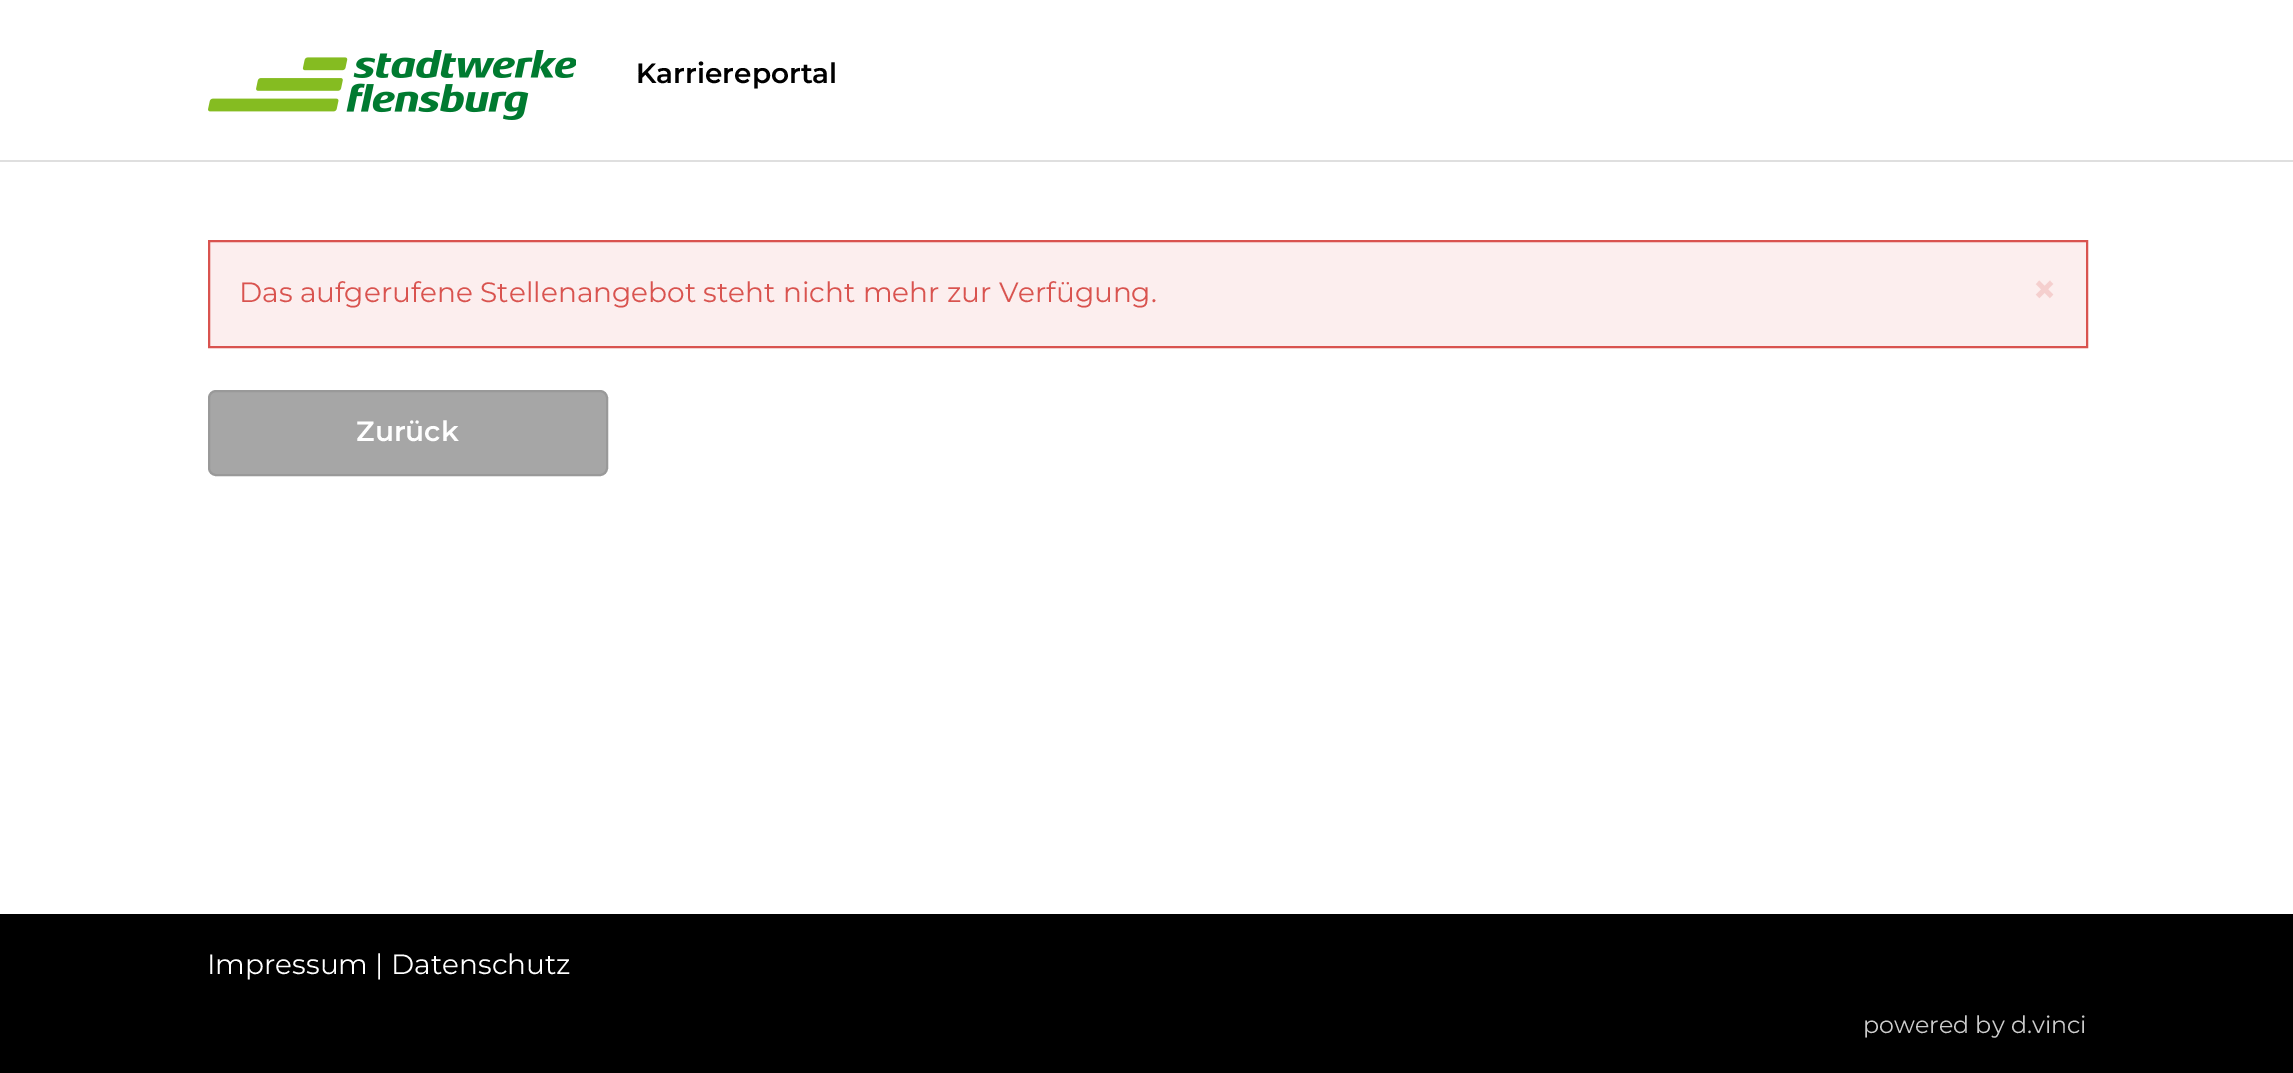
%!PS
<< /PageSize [2293 1073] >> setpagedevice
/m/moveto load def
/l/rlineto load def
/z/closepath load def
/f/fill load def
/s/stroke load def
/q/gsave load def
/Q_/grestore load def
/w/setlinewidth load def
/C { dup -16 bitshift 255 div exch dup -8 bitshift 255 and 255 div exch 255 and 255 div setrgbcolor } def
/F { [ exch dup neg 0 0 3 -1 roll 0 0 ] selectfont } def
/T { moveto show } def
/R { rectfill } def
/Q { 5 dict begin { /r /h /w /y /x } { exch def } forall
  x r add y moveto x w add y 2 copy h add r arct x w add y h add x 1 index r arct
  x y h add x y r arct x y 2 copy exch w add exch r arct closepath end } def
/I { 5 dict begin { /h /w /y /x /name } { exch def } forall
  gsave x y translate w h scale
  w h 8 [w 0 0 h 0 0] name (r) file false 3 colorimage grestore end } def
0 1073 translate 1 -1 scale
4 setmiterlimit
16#FFFFFF C
0 0 2293 1073 R
16#DFDFDF C
0 160 2293 2 R
(1.rgb) 208 50 368 70 I
/Montserrat-SemiBold 28 F
16#000000 C
(Karriereportal) 636 83 T
16#FCEEEE C
209 241 m 1878 0 l 0 106 l -1878 0 l z q f Q_
16#D9534F C
2 w
s
/Montserrat-Regular 28 F
(Das aufgerufene Stellenangebot steht nicht mehr zur Verfügung.) 239 302 T
/Montserrat-Bold 42 F
16#F5CFCE C
(×) 2032 304 T
16#A6A6A6 C
209 391 398 84 7 Q q f Q_
16#999999 C
s
/Montserrat-SemiBold 28 F
16#FFFFFF C
(Zurück) 356 441 T
16#000000 C
0 914 2293 159 R
/Montserrat-Regular 28 F
16#FFFFFF C
(Impressum | Datenschutz) 207 974 T
/Montserrat-Regular 23.75 F
16#CCCCCC C
(powered by d.vinci) 1863 1033 T
showpage
